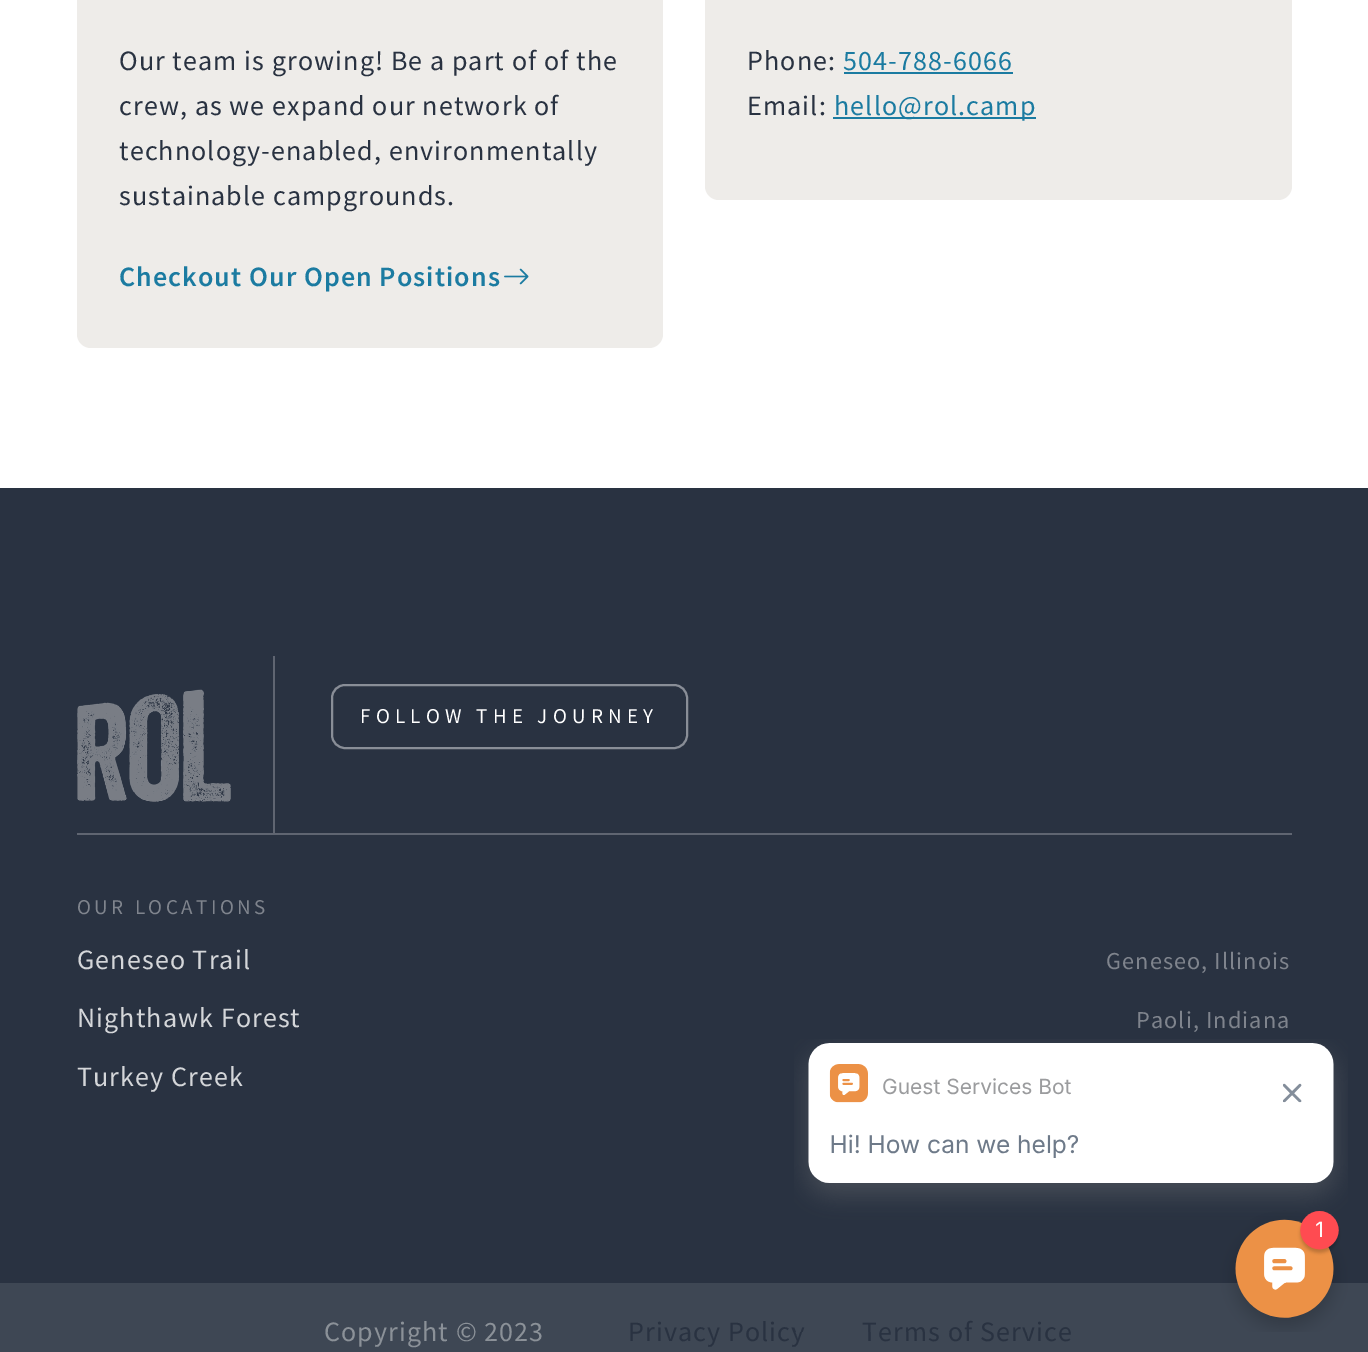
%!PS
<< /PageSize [1368 1352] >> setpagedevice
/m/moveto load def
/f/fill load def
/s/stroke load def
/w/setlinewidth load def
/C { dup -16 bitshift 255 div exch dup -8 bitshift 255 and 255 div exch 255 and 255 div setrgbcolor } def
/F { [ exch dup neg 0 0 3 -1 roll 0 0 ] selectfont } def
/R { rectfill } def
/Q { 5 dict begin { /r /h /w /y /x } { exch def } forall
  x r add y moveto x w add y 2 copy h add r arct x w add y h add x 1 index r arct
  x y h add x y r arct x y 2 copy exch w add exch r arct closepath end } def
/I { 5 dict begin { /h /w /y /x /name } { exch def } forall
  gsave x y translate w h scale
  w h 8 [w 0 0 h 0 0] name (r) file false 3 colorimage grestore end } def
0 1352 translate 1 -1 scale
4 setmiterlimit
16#FFFFFF C
0 0 1368 1352 R
16#EEECE9 C
77 -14 586 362 14 Q f
/SourceSansPro-Regular 28 F
16#293241 C
119 70 m 1.1 0 (Our team is growing! Be a part of of the) ashow
119 115 m 1.1 0 (crew, as we expand our network of) ashow
119 160 m 1.1 0 (technology-enabled, environmentally) ashow
119 205 m 1.1 0 (sustainable campgrounds.) ashow
/SourceSansPro-SemiBold 28 F
16#1B7BA1 C
119 286 m 1.1 0 (Checkout Our Open Positions) ashow
(1.rgb) 504 268 25 17 I
16#EEECE9 C
705 -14 587 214 14 Q f
/SourceSansPro-Regular 28 F
16#293241 C
747 70 m 1.1 0 (Phone:) ashow
16#1B7BA1 C
843 70 m 1.1 0 (504-788-6066) ashow
844 72 169 2 R
16#293241 C
747 115 m 1.1 0 (Email:) ashow
16#1B7BA1 C
833 117 203 2 R
834 115 m 1.1 0 (hello@rol.camp) ashow
16#293241 C
0 488 1368 795 R
(2.rgb) 77 689 154 113 I
16#5F6571 C
273 656 2 177 R
16#898E97 C
2 w
332 685 355 63 13 Q s
/SourceSansPro-Regular 21 F
16#FFFFFF C
360 723 m 5.25 0 (FOLLOW THE JOURNEY) ashow
16#5F6571 C
77 833 1215 2 R
16#7F848D C
77 914 m 3.5 0 (OUR LOCATIONS) ashow
/SourceSansPro-Regular 28 F
16#D4D6D9 C
77 969 m 1.1 0 (Geneseo Trail) ashow
/SourceSansPro-Regular 24.25 F
16#7F848D C
1106 969 m 1.1 0 (Geneseo, Illinois) ashow
/SourceSansPro-Regular 28 F
16#D4D6D9 C
77 1027 m 1.1 0 (Nighthawk Forest) ashow
/SourceSansPro-Regular 24.25 F
16#7F848D C
1136 1028 m 1.1 0 (Paoli, Indiana) ashow
/SourceSansPro-Regular 28 F
16#D4D6D9 C
77 1086 m 1.1 0 (Turkey Creek) ashow
16#3E4754 C
0 1283 1368 69 R
16#8B9198 C
324 1341 m 1.1 0 (Copyright © 2023) ashow
16#293241 C
628 1341 m 1.1 0 (Privacy Policy) ashow
862 1341 m 1.1 0 (Terms of Service) ashow
(3.rgb) 794 1039 554 293 I
showpage
